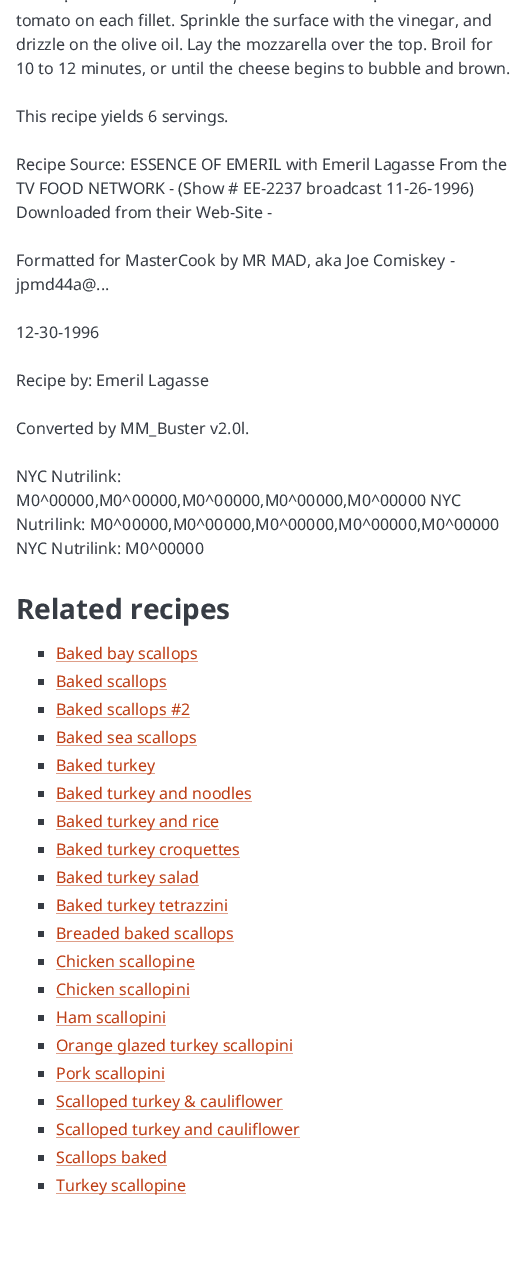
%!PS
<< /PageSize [527 1261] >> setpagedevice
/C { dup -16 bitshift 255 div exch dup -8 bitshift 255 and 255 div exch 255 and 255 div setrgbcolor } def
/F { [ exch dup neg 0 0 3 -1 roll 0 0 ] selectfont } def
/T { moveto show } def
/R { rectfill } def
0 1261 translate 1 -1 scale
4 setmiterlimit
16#FFFFFF C
0 0 527 1261 R
/NotoSans-Regular 16 F
16#373C44 C
(.) 64 2 T
(,) 233 2 T
(.) 373 2 T
(tomato on each fillet. Sprinkle the surface with the vinegar, and) 16 26 T
(drizzle on the olive oil. Lay the mozzarella over the top. Broil for) 16 50 T
(10 to 12 minutes, or until the cheese begins to bubble and brown.) 16 74 T
(This recipe yields 6 servings.) 16 122 T
(Recipe Source: ESSENCE OF EMERIL with Emeril Lagasse From the) 16 170 T
(TV FOOD NETWORK - \(Show # EE-2237 broadcast 11-26-1996\)) 16 194 T
(Downloaded from their Web-Site -) 16 218 T
(Formatted for MasterCook by MR MAD, aka Joe Comiskey -) 16 266 T
(jpmd44a@...) 16 290 T
(12-30-1996) 16 338 T
(Recipe by: Emeril Lagasse) 16 386 T
(Converted by MM_Buster v2.0l.) 16 434 T
(NYC Nutrilink:) 16 482 T
(M0^00000,M0^00000,M0^00000,M0^00000,M0^00000 NYC) 16 506 T
(Nutrilink: M0^00000,M0^00000,M0^00000,M0^00000,M0^00000) 16 530 T
(NYC Nutrilink: M0^00000) 16 554 T
/NotoSans-Bold 28 F
(Related recipes) 16 619 T
38 651 6 6 R
16#DE9E89 C
56 661 142 1 R
/NotoSans-Regular 16 F
16#BD3C13 C
(Baked bay scallops) 56 659 T
16#373C44 C
38 679 6 6 R
16#DE9E89 C
56 689 111 1 R
16#BD3C13 C
(Baked scallops) 56 687 T
16#373C44 C
38 707 6 6 R
16#DE9E89 C
56 717 134 1 R
16#BD3C13 C
(Baked scallops #2) 56 715 T
16#373C44 C
38 735 6 6 R
16#DE9E89 C
56 745 141 1 R
16#BD3C13 C
(Baked sea scallops) 56 743 T
16#373C44 C
38 763 6 6 R
16#DE9E89 C
56 773 99 1 R
16#BD3C13 C
(Baked turkey) 56 771 T
16#373C44 C
38 791 6 6 R
16#DE9E89 C
56 801 196 1 R
16#BD3C13 C
(Baked turkey and noodles) 56 799 T
16#373C44 C
38 819 6 6 R
16#DE9E89 C
56 829 163 1 R
16#BD3C13 C
(Baked turkey and rice) 56 827 T
16#373C44 C
38 847 6 6 R
16#DE9E89 C
56 857 184 1 R
16#BD3C13 C
(Baked turkey croquettes) 56 855 T
16#373C44 C
38 875 6 6 R
16#DE9E89 C
56 885 143 1 R
16#BD3C13 C
(Baked turkey salad) 56 883 T
16#373C44 C
38 903 6 6 R
16#DE9E89 C
56 913 172 1 R
16#BD3C13 C
(Baked turkey tetrazzini) 56 911 T
16#373C44 C
38 931 6 6 R
16#DE9E89 C
56 941 178 1 R
16#BD3C13 C
(Breaded baked scallops) 56 939 T
16#373C44 C
38 959 6 6 R
16#DE9E89 C
56 969 139 1 R
16#BD3C13 C
(Chicken scallopine) 56 967 T
16#373C44 C
38 987 6 6 R
16#DE9E89 C
56 997 134 1 R
16#BD3C13 C
(Chicken scallopini) 56 995 T
16#373C44 C
38 1015 6 6 R
16#DE9E89 C
56 1025 110 1 R
16#BD3C13 C
(Ham scallopini) 56 1023 T
16#373C44 C
38 1043 6 6 R
16#DE9E89 C
56 1053 237 1 R
16#BD3C13 C
(Orange glazed turkey scallopini) 56 1051 T
16#373C44 C
38 1071 6 6 R
16#DE9E89 C
56 1081 109 1 R
16#BD3C13 C
(Pork scallopini) 56 1079 T
16#373C44 C
38 1099 6 6 R
16#DE9E89 C
56 1109 227 1 R
16#BD3C13 C
(Scalloped turkey & cauliflower) 56 1107 T
16#373C44 C
38 1127 6 6 R
16#DE9E89 C
56 1137 244 1 R
16#BD3C13 C
(Scalloped turkey and cauliflower) 56 1135 T
16#373C44 C
38 1155 6 6 R
16#DE9E89 C
56 1165 111 1 R
16#BD3C13 C
(Scallops baked) 56 1163 T
16#373C44 C
38 1183 6 6 R
16#DE9E89 C
56 1193 130 1 R
16#BD3C13 C
(Turkey scallopine) 56 1191 T
showpage
